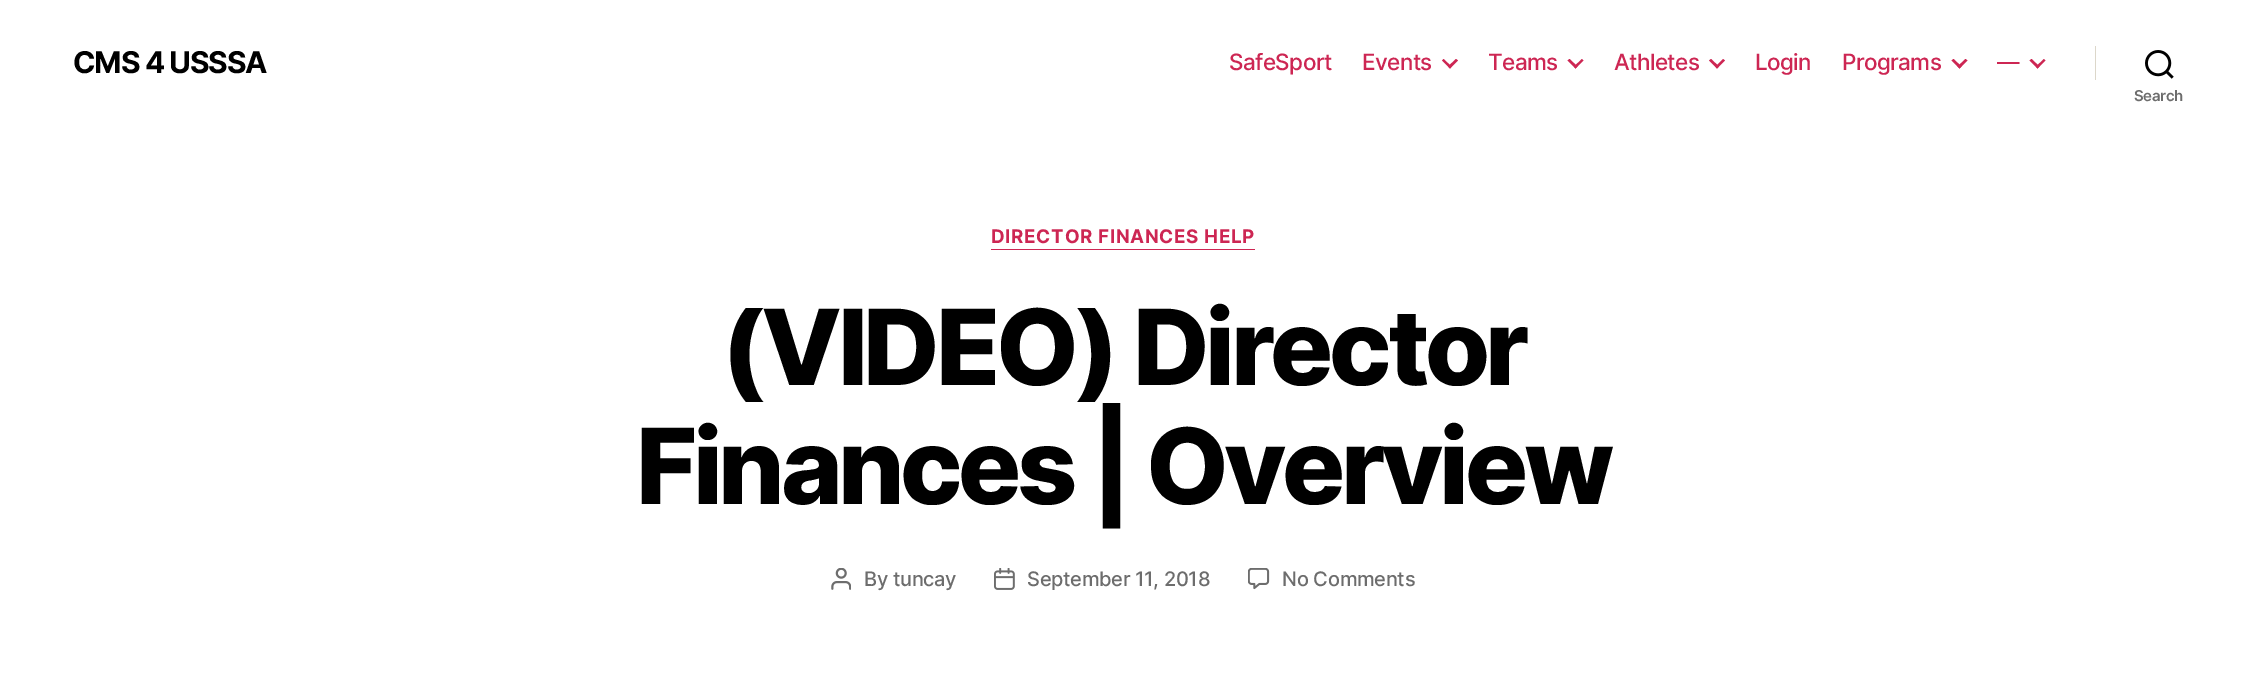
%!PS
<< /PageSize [2246 694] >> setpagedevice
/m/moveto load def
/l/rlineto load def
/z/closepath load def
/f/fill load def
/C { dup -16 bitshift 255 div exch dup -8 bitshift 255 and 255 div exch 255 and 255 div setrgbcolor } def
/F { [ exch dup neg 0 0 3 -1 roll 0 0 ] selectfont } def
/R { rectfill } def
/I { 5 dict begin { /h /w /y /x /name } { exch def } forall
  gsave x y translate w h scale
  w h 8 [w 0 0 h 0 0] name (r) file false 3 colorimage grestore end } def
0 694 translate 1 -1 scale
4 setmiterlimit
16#FFFFFF C
0 0 2246 694 R
/Inter-Bold 30 F
16#000000 C
73 73 m -1.25 0 (CMS 4 USSSA) ashow
/Inter-Medium 22.5 F
16#CD2653 C
1229 70 m -.6 0 (SafeSport) ashow
1362 70 m -.6 0 (Events) ashow
1442 60.5 m 1.5 -1.5 l 8 7.5 l -1.5 2 l z f
1448 66.5 m 8 -7.5 l 2 1.5 l -8 8 l z f
1488 70 m -.6 0 (Teams) ashow
1567.5 60.5 m 2 -1.5 l 8 7.5 l -2 2 l z f
1574 66.5 m 8 -7.5 l 1.5 1.5 l -8 8 l z f
1614 70 m -.6 0 (Athletes) ashow
1709 60.5 m 2 -1.5 l 8 7.5 l -2 2 l z f
1715.5 66.5 m 7.5 -7.5 l 2 1.5 l -8 8 l z f
1755 70 m -.6 0 (Login) ashow
1842 70 m -.6 0 (Programs) ashow
1951.5 60.5 m 2 -1.5 l 8 7.5 l -2 2 l z f
1957.5 66.5 m 8 -7.5 l 2 1.5 l -8 8 l z f
1997 70 m -.6 0 (—) ashow
2029.5 60.5 m 2 -1.5 l 8 7.5 l -2 2 l z f
2036 66.5 m 8 -7.5 l 1.5 1.5 l -8 8 l z f
16#DCD7CA C
2095 46 1 34 R
(1.rgb) 2145 50 29 29 I
/Inter-SemiBold 15 F
16#6D6D6D C
2134 101 m -.3 0 (Search) ashow
16#CD2653 C
991 249 264 1 R
/Inter-Bold 18.75 F
991 243 m .7 0 (DIRECTOR FINANCES HELP) ashow
/Inter-ExtraBold 105 F
16#000000 C
721 385 m -4.4 0 (\(VIDEO\) Director) ashow
636 504 m -4.4 0 (Finances | Overview) ashow
(2.rgb) 831 568 20 22 I
/Inter-Medium 20 F
16#6D6D6D C
864 586 m -.3 0 (By tuncay) ashow
(3.rgb) 994 568 21 22 I
1027 586 m -.3 0 (September 11, 2018) ashow
(4.rgb) 1248 568 22 22 I
1282 586 m -.3 0 (No Comments) ashow
showpage
